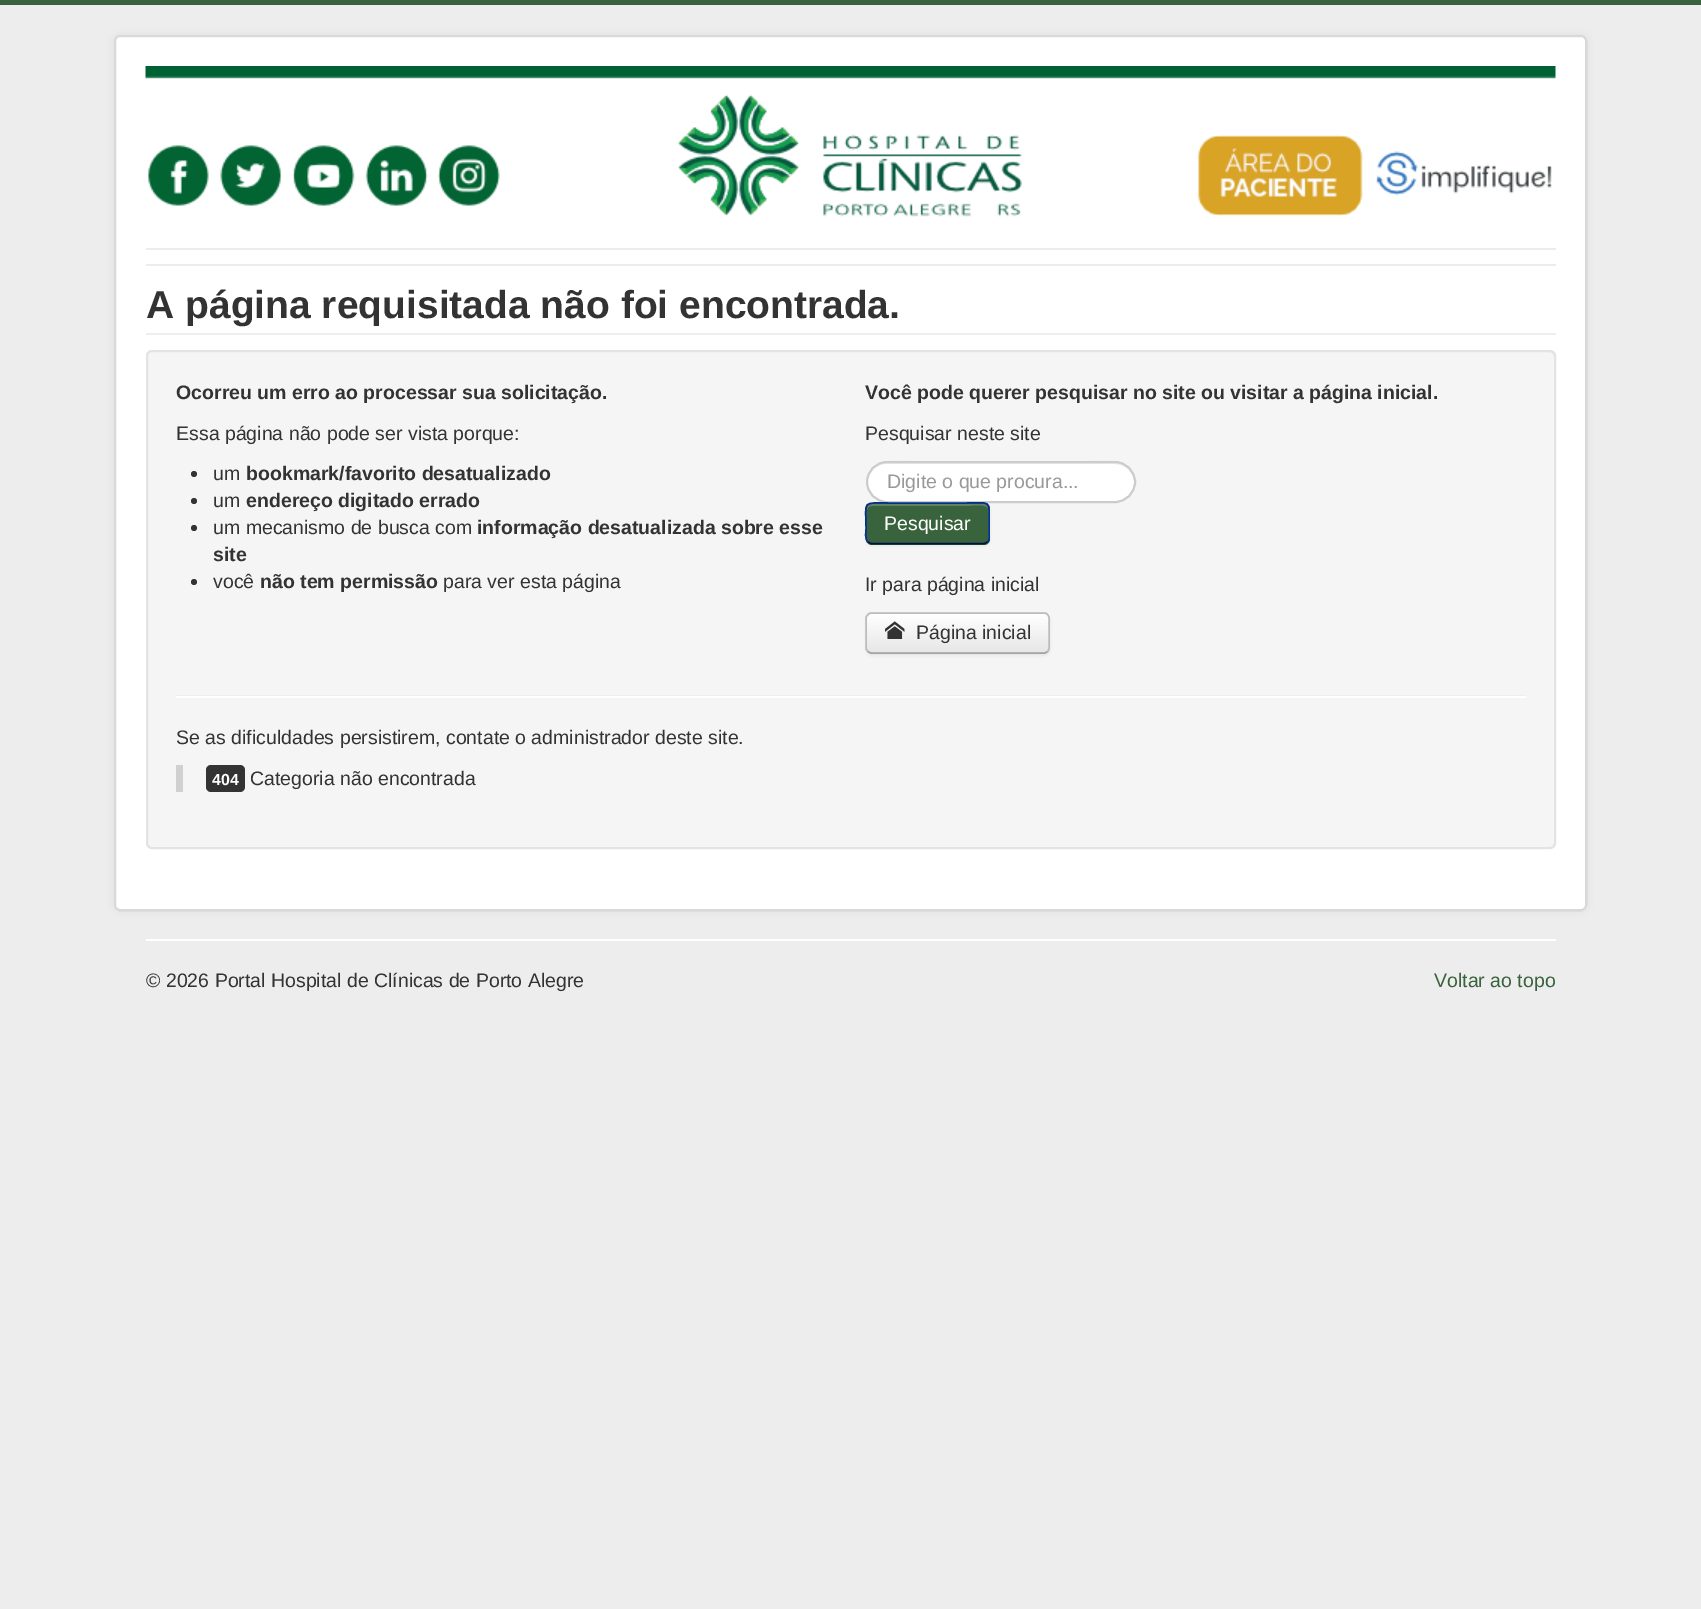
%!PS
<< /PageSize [1701 1609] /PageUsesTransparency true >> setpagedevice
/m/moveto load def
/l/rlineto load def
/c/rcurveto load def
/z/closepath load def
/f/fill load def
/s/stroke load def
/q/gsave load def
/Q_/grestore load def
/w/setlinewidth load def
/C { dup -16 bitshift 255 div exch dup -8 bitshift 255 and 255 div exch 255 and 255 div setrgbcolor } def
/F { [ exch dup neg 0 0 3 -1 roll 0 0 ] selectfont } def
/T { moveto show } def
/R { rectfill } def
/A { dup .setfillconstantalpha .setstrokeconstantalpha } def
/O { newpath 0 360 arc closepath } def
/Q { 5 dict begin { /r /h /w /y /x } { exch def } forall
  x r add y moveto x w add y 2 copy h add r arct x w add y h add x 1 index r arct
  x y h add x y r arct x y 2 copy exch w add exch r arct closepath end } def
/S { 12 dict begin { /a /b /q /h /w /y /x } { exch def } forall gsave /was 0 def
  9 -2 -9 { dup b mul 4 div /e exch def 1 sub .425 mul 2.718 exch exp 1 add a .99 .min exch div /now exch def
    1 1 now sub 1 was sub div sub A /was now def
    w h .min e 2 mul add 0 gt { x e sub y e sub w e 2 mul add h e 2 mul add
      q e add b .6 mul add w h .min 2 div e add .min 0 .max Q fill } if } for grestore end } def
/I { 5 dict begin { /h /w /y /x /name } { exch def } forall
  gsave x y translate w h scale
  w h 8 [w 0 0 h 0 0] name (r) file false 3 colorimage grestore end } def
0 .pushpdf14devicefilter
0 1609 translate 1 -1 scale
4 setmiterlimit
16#EDEDED C
0 0 1701 1609 R
16#39633D C
0 0 1701 5 R
16#000000 C
114 35 1473 876 6 4.5 .05 S
16#FFFFFF C
114 35 1473 876 6 Q f
0.15 A
16#000000 C
2 w
115 36 1471 874 5 Q s
1 A
(1.rgb) 145 66 1411 151 I
16#ECECEC C
146 248 1410 2 R
146 264 1410 2 R
16#EEEEEE C
146 333 1410 2 R
/LiberationSans-Bold 39 F
16#333333 C
(A página requisitada não foi encontrada.) 146 318 T
16#F5F5F5 C
146 350 1410 499 6 Q f
16#E9E9E9 C
152 352 m 1398 0 l 2 0 4 3 4 5 c 0 -3 -2 -6 -5 -6 c -1397 0 l -3 0 -5 3 -5 6 c 0 -2 2 -5 5 -5 c z f
16#E3E3E3 C
147 351 1408 497 5 Q s
/LiberationSans-Bold 19.5 F
16#333333 C
(Ocorreu um erro ao processar sua solicitação.) 176 399 T
/LiberationSans-Regular 19.5 F
(Essa página não pode ser vista porque:) 176 440 T
194 474 3 O f
(um) 213 480 T
/LiberationSans-Bold 19.5 F
(bookmark/favorito desatualizado) 246 480 T
194 501 3 O f
/LiberationSans-Regular 19.5 F
(um) 213 507 T
/LiberationSans-Bold 19.5 F
(endereço digitado errado) 246 507 T
194 528 3 O f
/LiberationSans-Regular 19.5 F
(um mecanismo de busca com) 213 534 T
/LiberationSans-Bold 19.5 F
(informação desatualizada sobre esse) 477 534 T
(site) 213 561 T
194 582 3 O f
/LiberationSans-Regular 19.5 F
(você) 213 588 T
/LiberationSans-Bold 19.5 F
(não tem permissão) 260 588 T
/LiberationSans-Regular 19.5 F
(para ver esta página) 443 588 T
/LiberationSans-Bold 19.5 F
(Você pode querer pesquisar no site ou visitar a página inicial.) 865 399 T
/LiberationSans-Regular 19.5 F
(Pesquisar neste site) 865 440 T
16#FFFFFF C
866 461 270 42 21 Q f
16#ECECEC C
886 464 m 228 0 l 11 0 20 8 20 18 c 1 -29 -44 -20 -58 -20 c -152 0 l -13 0 -58 -9 -57 20 c 0 -10 9 -18 19 -18 c z f
16#CCCCCC C
867 462 268 40 20 Q s
16#999999 C
(Digite o que procura...) 887 488 T
16#000000 C
866 504 124 42 6 1.5 .05 S
16#39633D C
866 503 124 42 6 Q f
16#618264 C
872 506 m 93 0 l 6 0 21 -3 23 3 c 0 32 l 1 -1 1 -2 1 -3 c 0 -29 l 0 -3 -2 -5 -5 -5 c -112 0 l -3 0 -5 2 -5 5 c 0 1 l 0 -2 2 -4 5 -4 c z f
16#001641 C
1.5 w
987.5 542 m -3 1.5 l -113.5 0 l -3 -1.5 l s
16#002F8D C
868 542 m -3.5 -3 -2 -10 -2 -13.5 c 0 -28.5 -5 -25.5 24 -25.5 c 75 0 l 27 0 24 -4 24 20.5 c 0 10 l 0 3 1 6.5 -1.5 8.5 c s
16#FFFFFF C
(Pesquisar) 884 530 T
16#333333 C
(Ir para página inicial) 865 591 T
16#000000 C
866 614 184 42 6 1.5 .05 S
16#F5F5F5 C
866 612 184 42 6 Q f
q
866 612 184 42 6 Q clip newpath
q 866 614 m 184 0 l 0 39 l -184 0 l z clip newpath
<< /ShadingType 2 /ColorSpace /DeviceRGB /Coords [958 614 958 653] /Extend [true true] /Function << /FunctionType 2 /Domain [0 1] /C0 [1 1 1] /C1 [.902 .902 .902] /N 1 >> >> shfill Q_
Q_
0.2 A
16#FFFFFF C
872 615 m 172 0 l 6 0 4 12 4 15 c 0 21 l 1 -1 1 -2 1 -3 c 0 -29 l 0 -3 -2 -5 -5 -5 c -172 0 l -3 0 -5 2 -5 5 c 0 1 l 0 -3 2 -5 5 -5 c z f
1 A
16#A2A2A2 C
1047.5 651.5 m -1 1 -2 1.5 -3.5 1.5 c -172.5 0 l -1.5 0 -2.5 -.5 -3.5 -1.5 c s
16#BBBBBB C
868 651.5 m -1 -1 -2 -2 -2 -3.5 c 0 -30 l 0 -1.5 1 -2.5 2 -3.5 c 1 -1 2 -1.5 3.5 -1.5 c 172.5 0 l 1.5 0 2.5 .5 3.5 1.5 c 1 1 1.5 2 1.5 3.5 c 0 30 l 0 1.5 -.5 2.5 -1.5 3.5 c s
(2.rgb) 885 621 20 18 I
16#333333 C
(Página inicial) 916 639 T
16#EEEEEE C
176 695 1350 1 R
16#FFFFFF C
176 696 1350 2 R
16#333333 C
(Se as dificuldades persistirem, contate o administrador deste site.) 176 744 T
16#D0D0D0 C
176 765 7 27 R
16#333333 C
206 765 39 27 5 Q f
/LiberationSans-Bold 16 F
16#FFFFFF C
(404) 212 785 T
/LiberationSans-Regular 19.5 F
16#333333 C
(Categoria não encontrada) 250 785 T
16#FFFFFF C
146 939 1410 2 R
16#333333 C
(© 2026 Portal Hospital de Clínicas de Porto Alegre) 146 987 T
16#39633D C
(Voltar ao topo) 1434 987 T
.poppdf14devicefilter showpage
